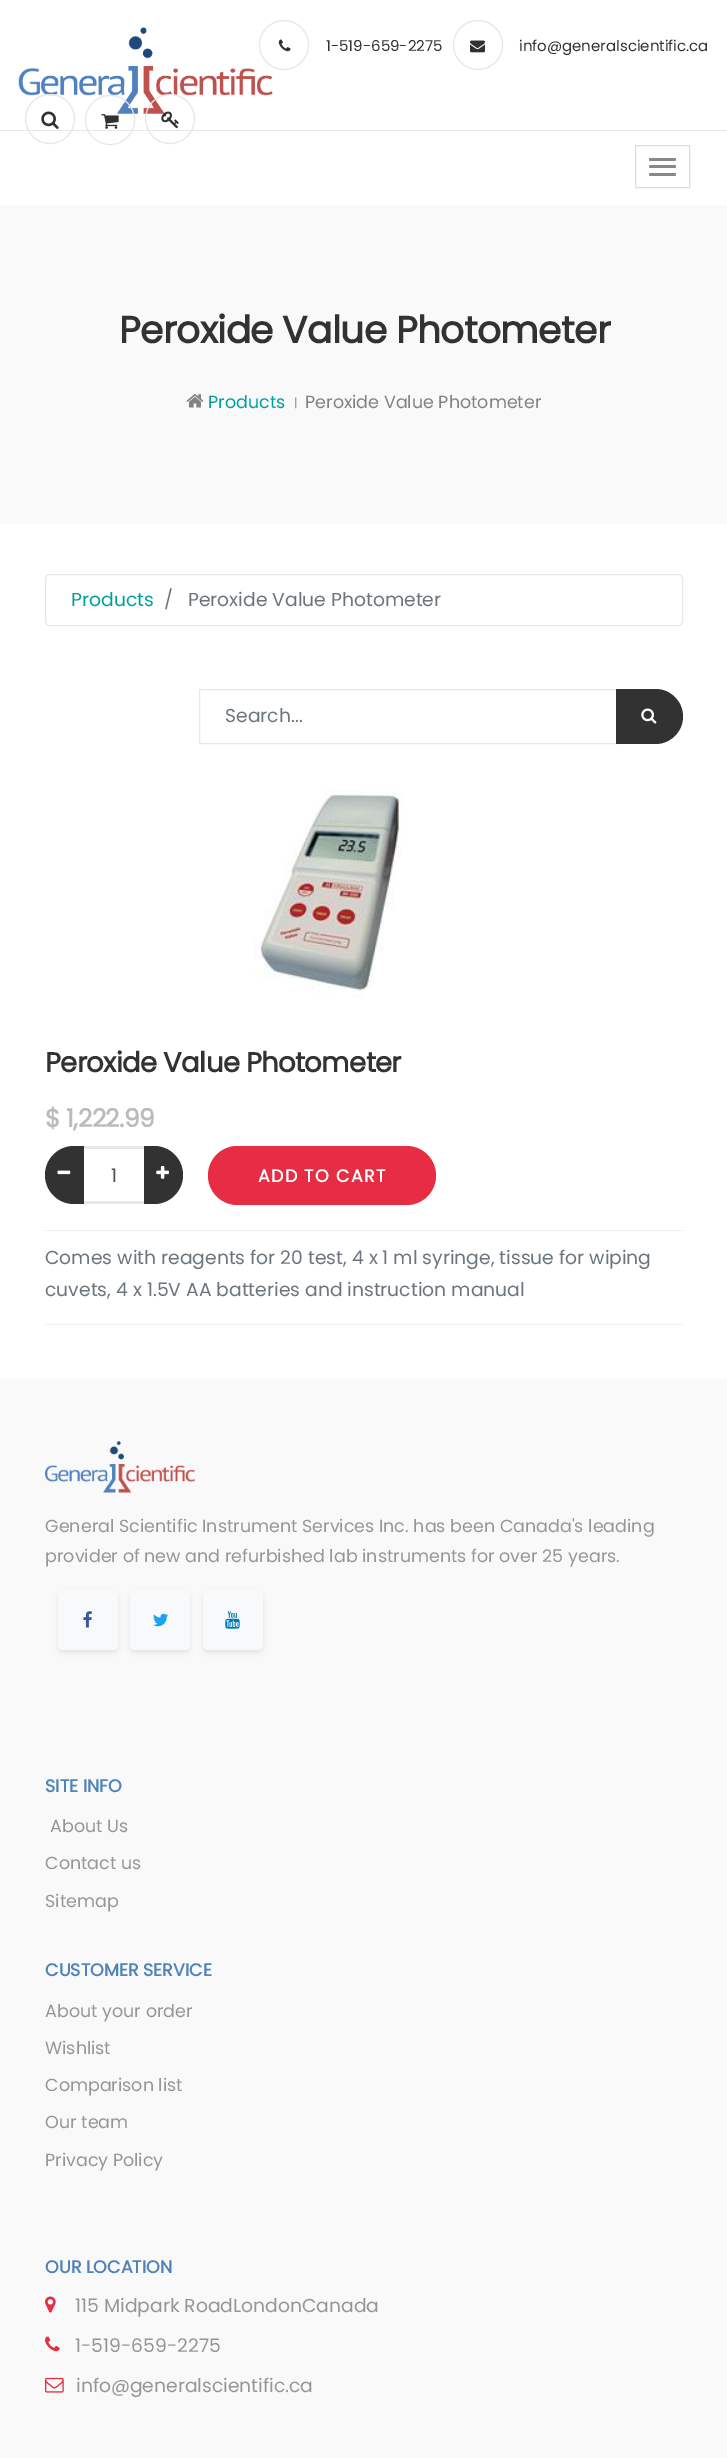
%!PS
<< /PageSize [727 2458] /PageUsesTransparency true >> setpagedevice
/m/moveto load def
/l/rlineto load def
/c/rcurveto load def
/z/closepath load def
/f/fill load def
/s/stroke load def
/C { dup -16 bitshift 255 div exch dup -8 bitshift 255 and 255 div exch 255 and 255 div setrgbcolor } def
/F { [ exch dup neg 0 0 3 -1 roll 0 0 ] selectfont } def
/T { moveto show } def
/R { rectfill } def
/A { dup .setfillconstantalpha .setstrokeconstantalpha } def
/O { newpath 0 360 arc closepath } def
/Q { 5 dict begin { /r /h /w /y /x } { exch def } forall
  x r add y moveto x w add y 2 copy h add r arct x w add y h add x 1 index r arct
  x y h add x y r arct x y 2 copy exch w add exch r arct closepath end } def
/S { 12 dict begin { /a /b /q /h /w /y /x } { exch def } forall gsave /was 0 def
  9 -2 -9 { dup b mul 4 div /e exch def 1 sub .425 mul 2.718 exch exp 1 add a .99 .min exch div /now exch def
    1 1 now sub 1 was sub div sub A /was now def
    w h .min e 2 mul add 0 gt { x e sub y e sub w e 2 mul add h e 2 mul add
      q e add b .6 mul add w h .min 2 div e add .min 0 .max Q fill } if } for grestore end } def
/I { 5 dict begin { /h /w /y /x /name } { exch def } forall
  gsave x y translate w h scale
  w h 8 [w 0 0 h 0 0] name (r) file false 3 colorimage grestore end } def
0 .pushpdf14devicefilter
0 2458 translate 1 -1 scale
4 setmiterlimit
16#FFFFFF C
0 0 727 2458 R
(1.rgb) 18 27 255 87 I
16#E7E7E7 C
0 130 727 1 R
16#E6E6E6 C
50 119 24.5 O s
(2.rgb) 41 111 18 18 I
110 120 24.5 O s
(3.rgb) 101 114 18 15 I
170 119 24.5 O s
(4.rgb) 161 111 18 18 I
16#DDDDDD C
635.5 145.5 54 42 rectstroke
16#888888 C
649 158 27 3 1.5 Q f
649 165 27 3 1.5 Q f
649 173 27 3 1.5 Q f
16#E6E6E6 C
284 45 24.5 O s
(5.rgb) 278 39 13 13 I
/Poppins-Regular 15 F
16#323232 C
(1-519-659-2275) 326 51 T
16#E6E6E6 C
478 45 24.5 O s
(6.rgb) 470 40 15 13 I
16#323232 C
(info@generalscientific.ca) 519 51 T
16#F9F9F9 C
0 205 727 319 R
/Poppins-Bold 37.5 F
16#323232 C
119 343 m -.6 0 (Peroxide Value Photometer) ashow
(7.rgb) 186 394 18 14 I
/Poppins-Regular 17.5 F
16#00A09D C
(Products) 208 408 T
/Poppins-Regular 12 F
16#828282 C
(|) 294 407 T
/Poppins-Regular 17.5 F
(Peroxide Value Photometer) 305 408 T
16#E8E8E8 C
45.5 574.5 637 51 4.5 Q s
/Poppins-Regular 18.75 F
16#00A09D C
(Products) 71 606 T
16#6C757D C
(/) 164 606 T
(Peroxide Value Photometer) 188 606 T
16#E6E6E6 C
199.5 689.5 418 54 rectstroke
16#6C757D C
(Search...) 225 722 T
16#323232 C
616 689 m 39.5 0 l 15 0 27.5 12.5 27.5 27.5 c 0 15 -12.5 27.5 -27.5 27.5 c -39.5 0 l z f
(8.rgb) 641 708 16 16 I
(9.rgb) 254 789 148 209 I
/Poppins-Bold 27.5 F
45 1072 m -.6 0 (Peroxide Value Photometer) ashow
/Poppins-Bold 25 F
16#BBBBBB C
45 1127 m -.6 0 ($ 1,222.99) ashow
16#E7E7E7 C
83 1146 62 3 R
83 1201 62 3 R
16#323232 C
74 1146 m 10 0 l 0 58 l -10 0 l -16 0 -29 -13 -29 -29 c 0 -16 13 -29 29 -29 c z f
(10.rgb) 57 1170 14 5 I
/Poppins-Regular 18.75 F
16#495057 C
(1) 111 1182 T
16#323232 C
144 1146 m 10 0 l 16 0 29 13 29 29 c 0 16 -13 29 -29 29 c -10 0 l z f
(11.rgb) 156 1166 13 13 I
16#E72D43 C
208 1146 228 59 29.5 Q f
/Poppins-Bold 17.5 F
16#FFFFFF C
258 1182 m 1.25 0 (ADD TO CART) ashow
16#EEEEEE C
45 1230 638 1 R
/Poppins-Regular 18.75 F
16#6C757D C
(Comes with reagents for 20 test, 4 x 1 ml syringe, tissue for wiping) 45 1264 T
(cuvets, 4 x 1.5V AA batteries and instruction manual) 45 1296 T
16#EEEEEE C
45 1324 638 1 R
16#F9F9F9 C
0 1379 727 1079 R
(12.rgb) 45 1441 150 52 I
/Poppins-Regular 17.5 F
16#969696 C
(General Scientific Instrument Services Inc. has been Canada's leading) 45 1532 T
(provider of new and refurbished lab instruments for over 25 years.) 45 1562 T
16#000000 C
58 1593 60 60 5 2.5 .07 S
16#F8F9FA C
58 1590 60 60 5 Q f
(13.rgb) 83 1611 9 17 I
16#000000 C
130 1593 60 60 5 2.5 .07 S
16#F8F9FA C
130 1590 60 60 5 Q f
(14.rgb) 153 1613 16 14 I
16#000000 C
203 1593 60 60 5 2.5 .07 S
16#F8F9FA C
203 1590 60 60 5 Q f
(15.rgb) 225 1611 15 18 I
/Poppins-Bold 17.5 F
16#4F83BA C
(SITE INFO) 45 1792 T
/Poppins-Regular 17.5 F
16#969696 C
(About Us) 50 1832 T
(Contact us) 45 1869 T
(Sitemap) 45 1907 T
/Poppins-Bold 17.5 F
16#4F83BA C
(CUSTOMER SERVICE) 45 1976 T
/Poppins-Regular 17.5 F
16#969696 C
(About your order) 45 2017 T
(Wishlist) 45 2054 T
(Comparison list) 45 2091 T
(Our team) 45 2128 T
(Privacy Policy) 45 2166 T
/Poppins-Bold 17.5 F
16#4F83BA C
(OUR LOCATION) 45 2273 T
(16.rgb) 45 2296 11 17 I
/Poppins-Regular 18.75 F
16#969696 C
(115 Midpark RoadLondonCanada) 75 2312 T
(17.rgb) 45 2336 15 16 I
(1-519-659-2275) 75 2352 T
(18.rgb) 45 2377 19 16 I
(info@generalscientific.ca) 76 2392 T
.poppdf14devicefilter showpage
